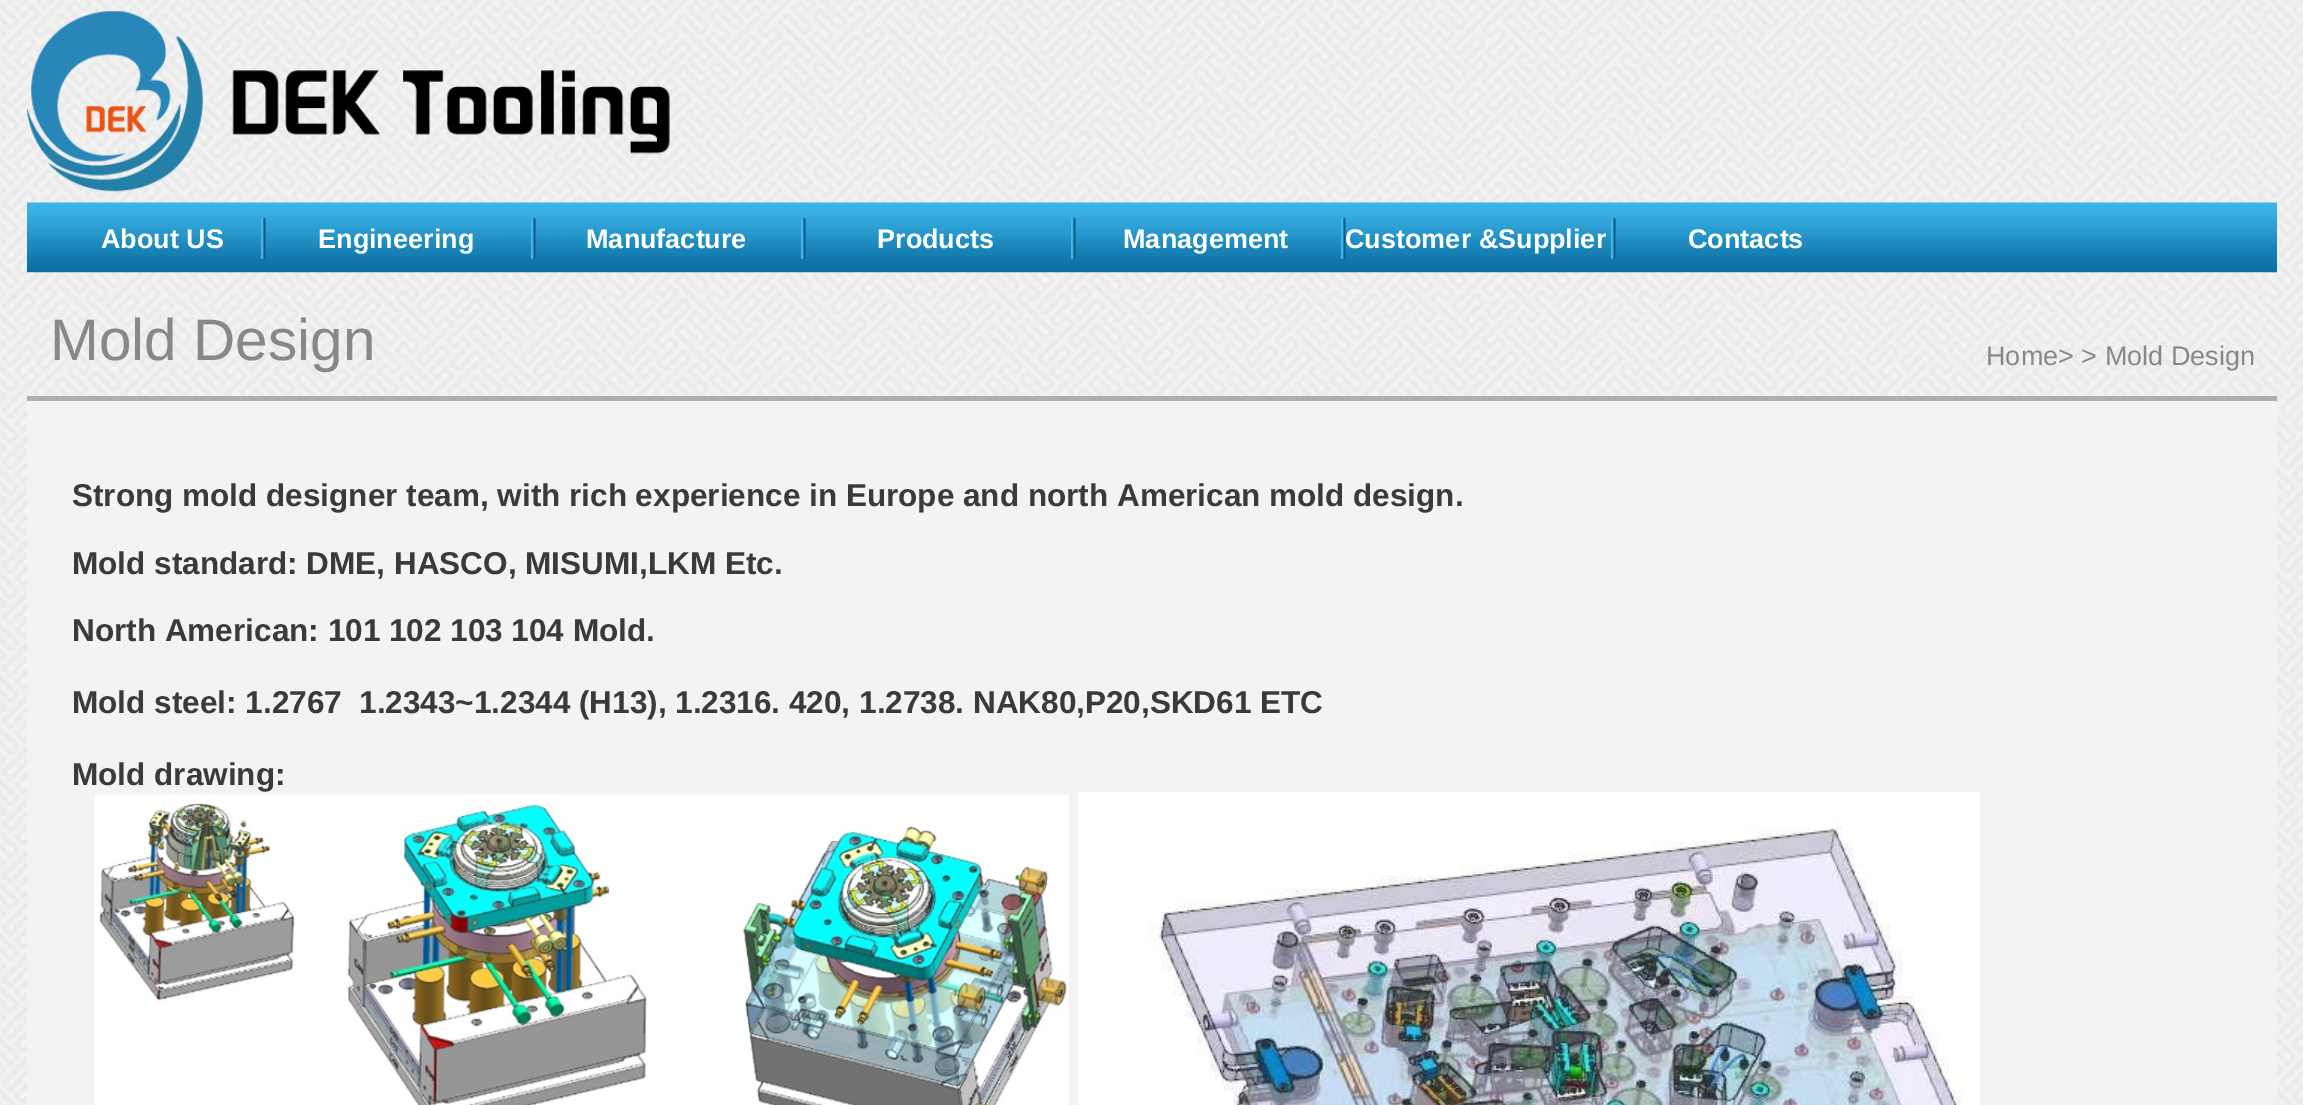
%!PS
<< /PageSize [2303 1105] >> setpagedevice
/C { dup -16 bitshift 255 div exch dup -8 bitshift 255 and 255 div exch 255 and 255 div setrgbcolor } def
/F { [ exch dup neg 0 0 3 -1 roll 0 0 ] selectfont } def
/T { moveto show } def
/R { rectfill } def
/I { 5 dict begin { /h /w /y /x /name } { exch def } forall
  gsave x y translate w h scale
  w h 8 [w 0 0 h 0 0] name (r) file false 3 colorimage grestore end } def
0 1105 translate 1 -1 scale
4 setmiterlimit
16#FFFFFF C
0 0 2303 1105 R
(1.rgb) 0 0 2303 1105 I
(2.rgb) 27 11 643 181 I
(3.rgb) 27 202 2250 71 I
/LiberationSans-Bold 27 F
(About US) 101 248 T
(4.rgb) 261 218 5 41 I
(Engineering) 318 248 T
(5.rgb) 531 218 5 41 I
(Manufacture) 586 248 T
(6.rgb) 801 218 5 41 I
(Products) 877 248 T
(7.rgb) 1071 218 5 41 I
(Management) 1123 248 T
(6.rgb) 1341 218 5 41 I
(Customer &Supplier) 1345 248 T
(6.rgb) 1611 218 5 41 I
(Contacts) 1688 248 T
16#AFAFAF C
27 396 2250 5 R
/LiberationSans-Regular 58.5 F
16#888888 C
(Mold Design) 50 360 T
/LiberationSans-Regular 27 F
(Home> > Mold Design) 1986 365 T
16#F3F3F3 C
27 401 2250 704 R
/LiberationSans-Bold 31.5 F
16#3A3A3A C
(Strong mold designer team, with rich experience in Europe and north American mold design.) 72 506 T
(Mold standard: DME, HASCO, MISUMI,LKM Etc.) 72 574 T
(North American: 101 102 103 104 Mold.) 72 641 T
(Mold steel: 1.2767  1.2343~1.2344 \(H13\), 1.2316. 420, 1.2738. NAK80,P20,SKD61 ETC) 72 713 T
(Mold drawing:) 72 785 T
(8.rgb) 94 792 975 313 I
(9.rgb) 1078 792 902 313 I
showpage
